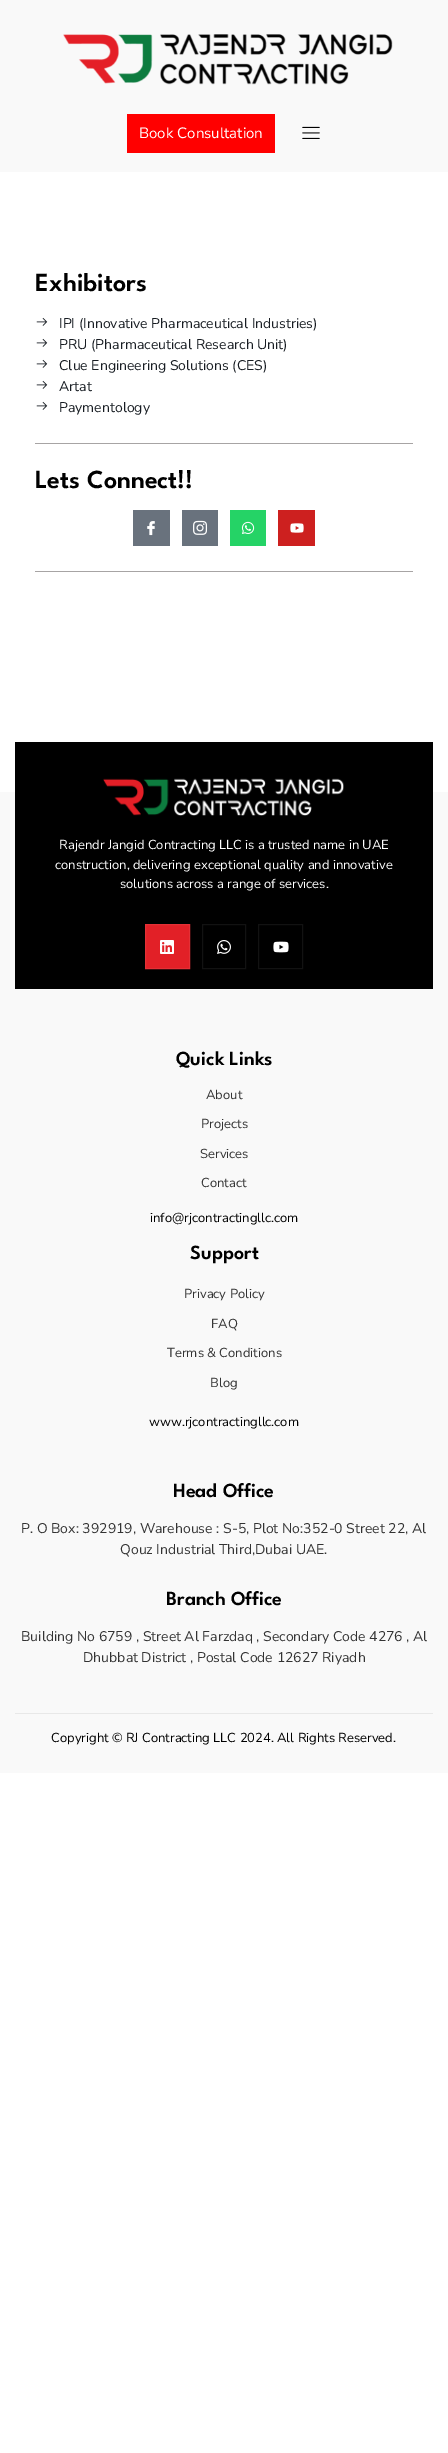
%!PS
<< /PageSize [448 2453] >> setpagedevice
/m/moveto load def
/l/rlineto load def
/z/closepath load def
/f/fill load def
/s/stroke load def
/q/gsave load def
/Q_/grestore load def
/C { dup -16 bitshift 255 div exch dup -8 bitshift 255 and 255 div exch 255 and 255 div setrgbcolor } def
/F { [ exch dup neg 0 0 3 -1 roll 0 0 ] selectfont } def
/T { moveto show } def
/R { rectfill } def
/I { 5 dict begin { /h /w /y /x /name } { exch def } forall
  gsave x y translate w h scale
  w h 8 [w 0 0 h 0 0] name (r) file false 3 colorimage grestore end } def
0 2453 translate 1 -1 scale
4 setmiterlimit
16#FFFFFF C
0 0 448 2453 R
16#F9F9F9 C
0 0 448 172 R
(1.rgb) 63 34 330 51 I
16#FF0000 C
127 114 148 39 R
/NunitoSans-Regular 15 F
16#FFFFFF C
(Book Consultation) 139 138 T
(2.rgb) 302 126 18 13 I
/LeagueSpartan-SemiBold 26 F
16#000000 C
(Exhibitors) 35 291 T
(3.rgb) 36 317 12 9 I
/NunitoSans-Regular 14 F
16#181D23 C
(IPI \(Innovative Pharmaceutical Industries\)) 59 328 T
(3.rgb) 36 338 12 9 I
(PRU \(Pharmaceutical Research Unit\)) 59 349 T
(3.rgb) 36 359 12 9 I
(Clue Engineering Solutions \(CES\)) 59 370 T
(3.rgb) 36 380 12 9 I
(Artat) 59 391 T
(3.rgb) 36 401 12 9 I
(Paymentology) 59 412 T
16#A7A4A4 C
35 443 378 1 R
/LeagueSpartan-SemiBold 26 F
16#000000 C
(Lets Connect!!) 35 488 T
16#69727D C
133 510 37 36 R
(4.rgb) 147 521 8 15 I
182 510 36 36 R
(5.rgb) 193 520 15 15 I
16#25D366 C
230 510 36 36 R
(6.rgb) 241 521 14 13 I
16#CD201F C
278 510 37 36 R
(7.rgb) 290 523 14 10 I
16#A7A4A4 C
35 571 378 1 R
16#F9F9F9 C
0 792 448 981 R
16#E8E8E8 C
15 1713 418 1 R
16#000000 C
15 742 418 247 R
(8.rgb) 103 778 241 38 I
/NunitoSans-Regular 13 F
16#FFFFFF C
(Rajendr Jangid Contracting LLC is a trusted name in UAE) 59 849 T
(construction, delivering exceptional quality and innovative) 55 869 T
(solutions across a range of services.) 120 888 T
16#E22027 C
145.5 924.5 m 44 0 l 0 44 l -44 0 l z q f Q_
16#E43036 C
s
(9.rgb) 160 940 14 14 I
16#121212 C
202.5 924.5 43 44 rectstroke
(10.rgb) 217 940 14 14 I
258.5 924.5 44 44 rectstroke
(11.rgb) 273 941 16 12 I
/LeagueSpartan-SemiBold 20 F
16#000000 C
(Quick Links) 176 1065 T
/NunitoSans-Regular 13 F
16#333333 C
(About) 206 1099 T
(Projects) 201 1128 T
(Services) 200 1158 T
(Contact) 201 1187 T
16#000000 C
(info@rjcontractingllc.com) 150 1222 T
/LeagueSpartan-SemiBold 20 F
(Support) 190 1259 T
/NunitoSans-Regular 13 F
16#333333 C
(Privacy Policy) 184 1298 T
(FAQ) 211 1328 T
(Terms & Conditions) 167 1357 T
(Blog) 210 1387 T
16#000000 C
(www.rjcontractingllc.com) 149 1426 T
/LeagueSpartan-SemiBold 20 F
(Head Office) 173 1497 T
/NunitoSans-Regular 14 F
16#333333 C
(P. O Box: 392919, Warehouse : S-5, Plot No:352-0 Street 22, Al) 21 1533 T
(Qouz Industrial Third,Dubai UAE.) 120 1554 T
/LeagueSpartan-SemiBold 20 F
16#000000 C
(Branch Office) 166 1605 T
/NunitoSans-Regular 14 F
16#333333 C
(Building No 6759 , Street Al Farzdaq , Secondary Code 4276 , Al) 21 1641 T
(Dhubbat District , Postal Code 12627 Riyadh) 83 1662 T
/NunitoSans-Regular 13 F
16#000000 C
(Copyright © RJ Contracting LLC 2024. All Rights Reserved.) 51 1742 T
showpage
